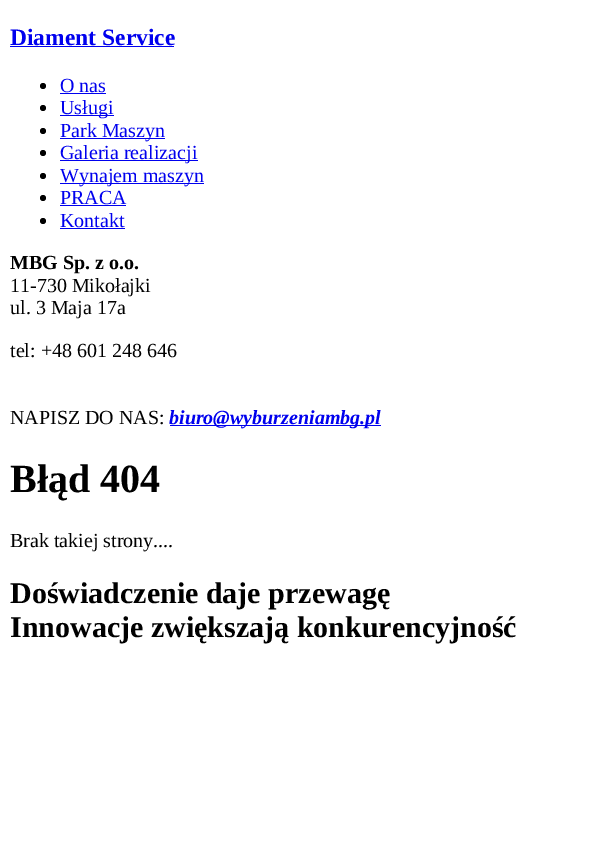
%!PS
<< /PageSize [609 861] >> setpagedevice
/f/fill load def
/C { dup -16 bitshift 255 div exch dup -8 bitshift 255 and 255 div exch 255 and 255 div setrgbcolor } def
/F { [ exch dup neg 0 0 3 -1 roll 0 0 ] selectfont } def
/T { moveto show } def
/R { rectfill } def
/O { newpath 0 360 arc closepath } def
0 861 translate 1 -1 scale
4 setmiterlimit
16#FFFFFF C
0 0 609 861 R
/LiberationSerif-Bold 23.5 F
16#0000EE C
(Diament Service) 10 45 T
10 46 164 1 R
16#000000 C
43 86 3 O f
/LiberationSerif-Regular 20 F
16#0000EE C
(O nas) 60 92 T
60 93 46 1 R
16#000000 C
43 108 3 O f
16#0000EE C
60 115 54 1 R
(Usługi) 60 114 T
16#000000 C
43 131 3 O f
16#0000EE C
60 138 105 1 R
(Park Maszyn) 60 137 T
16#000000 C
43 153 3 O f
16#0000EE C
60 160 138 1 R
(Galeria realizacji) 60 159 T
16#000000 C
43 176 3 O f
16#0000EE C
60 183 144 1 R
(Wynajem maszyn) 60 182 T
16#000000 C
43 198 3 O f
16#0000EE C
(PRACA) 60 204 T
60 205 66 1 R
16#000000 C
43 221 3 O f
16#0000EE C
(Kontakt) 60 227 T
60 228 65 1 R
/LiberationSerif-Bold 20 F
16#000000 C
(MBG Sp. z o.o.) 10 269 T
/LiberationSerif-Regular 20 F
(11-730 Mikołajki) 10 292 T
(ul. 3 Maja 17a) 10 314 T
(tel: +48 601 248 646) 10 357 T
(NAPISZ DO NAS:) 10 424 T
16#0000EE C
170 425 211 1 R
/LiberationSerif-BoldItalic 20 F
(biuro@wyburzeniambg.pl) 169 424 T
/LiberationSerif-Bold 40 F
16#000000 C
(Błąd 404) 10 492 T
/LiberationSerif-Regular 20 F
(Brak takiej strony....) 10 547 T
/LiberationSerif-Bold 30 F
(Doświadczenie daje przewagę) 10 603 T
(Innowacje zwiększają konkurencyjność) 10 637 T
showpage
